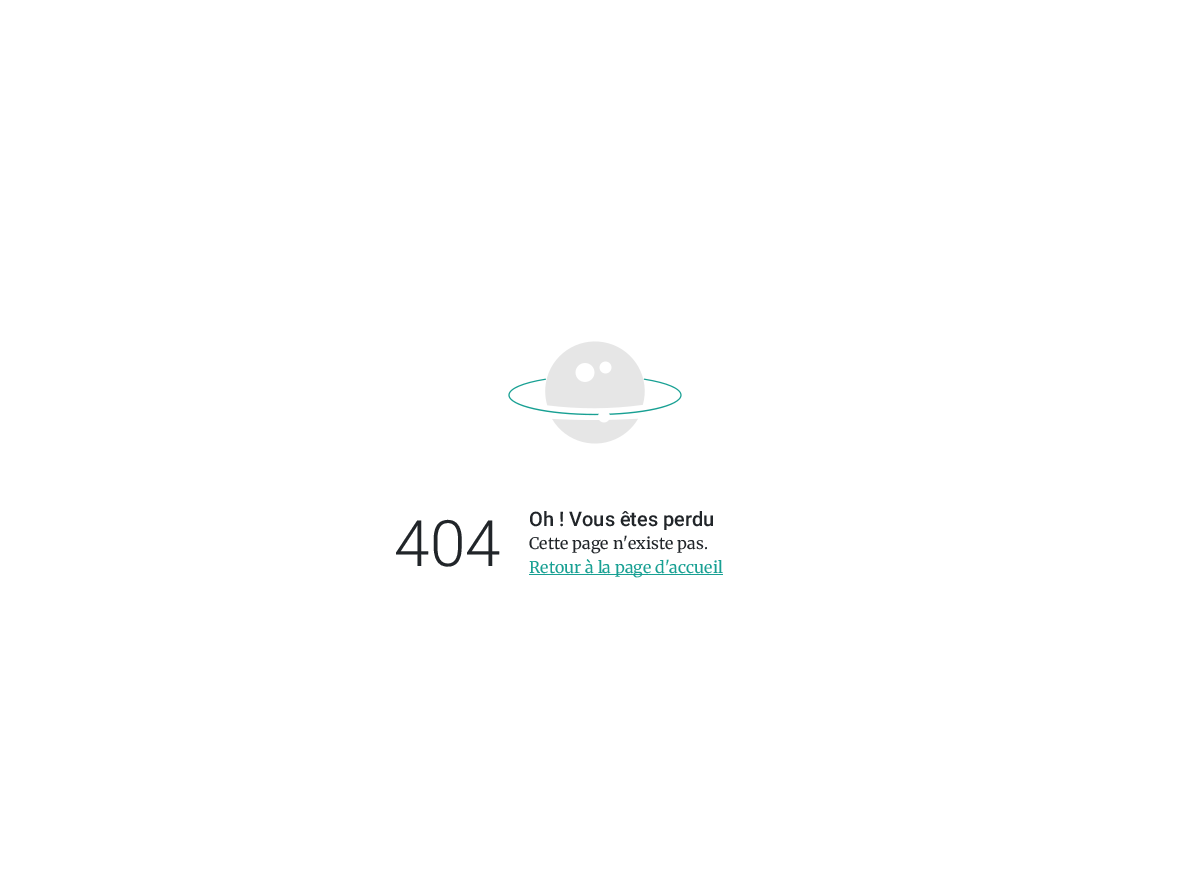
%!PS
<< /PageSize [1190 878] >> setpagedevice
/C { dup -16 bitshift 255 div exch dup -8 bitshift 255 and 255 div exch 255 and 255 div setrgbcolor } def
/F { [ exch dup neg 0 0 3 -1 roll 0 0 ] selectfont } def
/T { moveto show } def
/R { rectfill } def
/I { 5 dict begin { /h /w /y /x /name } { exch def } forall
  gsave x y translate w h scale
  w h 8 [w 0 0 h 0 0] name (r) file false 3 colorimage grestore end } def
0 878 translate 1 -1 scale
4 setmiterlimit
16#FFFFFF C
0 0 1190 878 R
(1.rgb) 508 341 174 103 I
/Roboto-Light 64 F
16#212529 C
(404) 394 566 T
/Roboto-Medium 20 F
(Oh ! Vous êtes perdu) 529 526 T
/Merriweather-Regular 16 F
(Cette page n'existe pas.) 529 549 T
16#18A093 C
529 574 194 1 R
(Retour à la page d'accueil) 529 573 T
showpage
